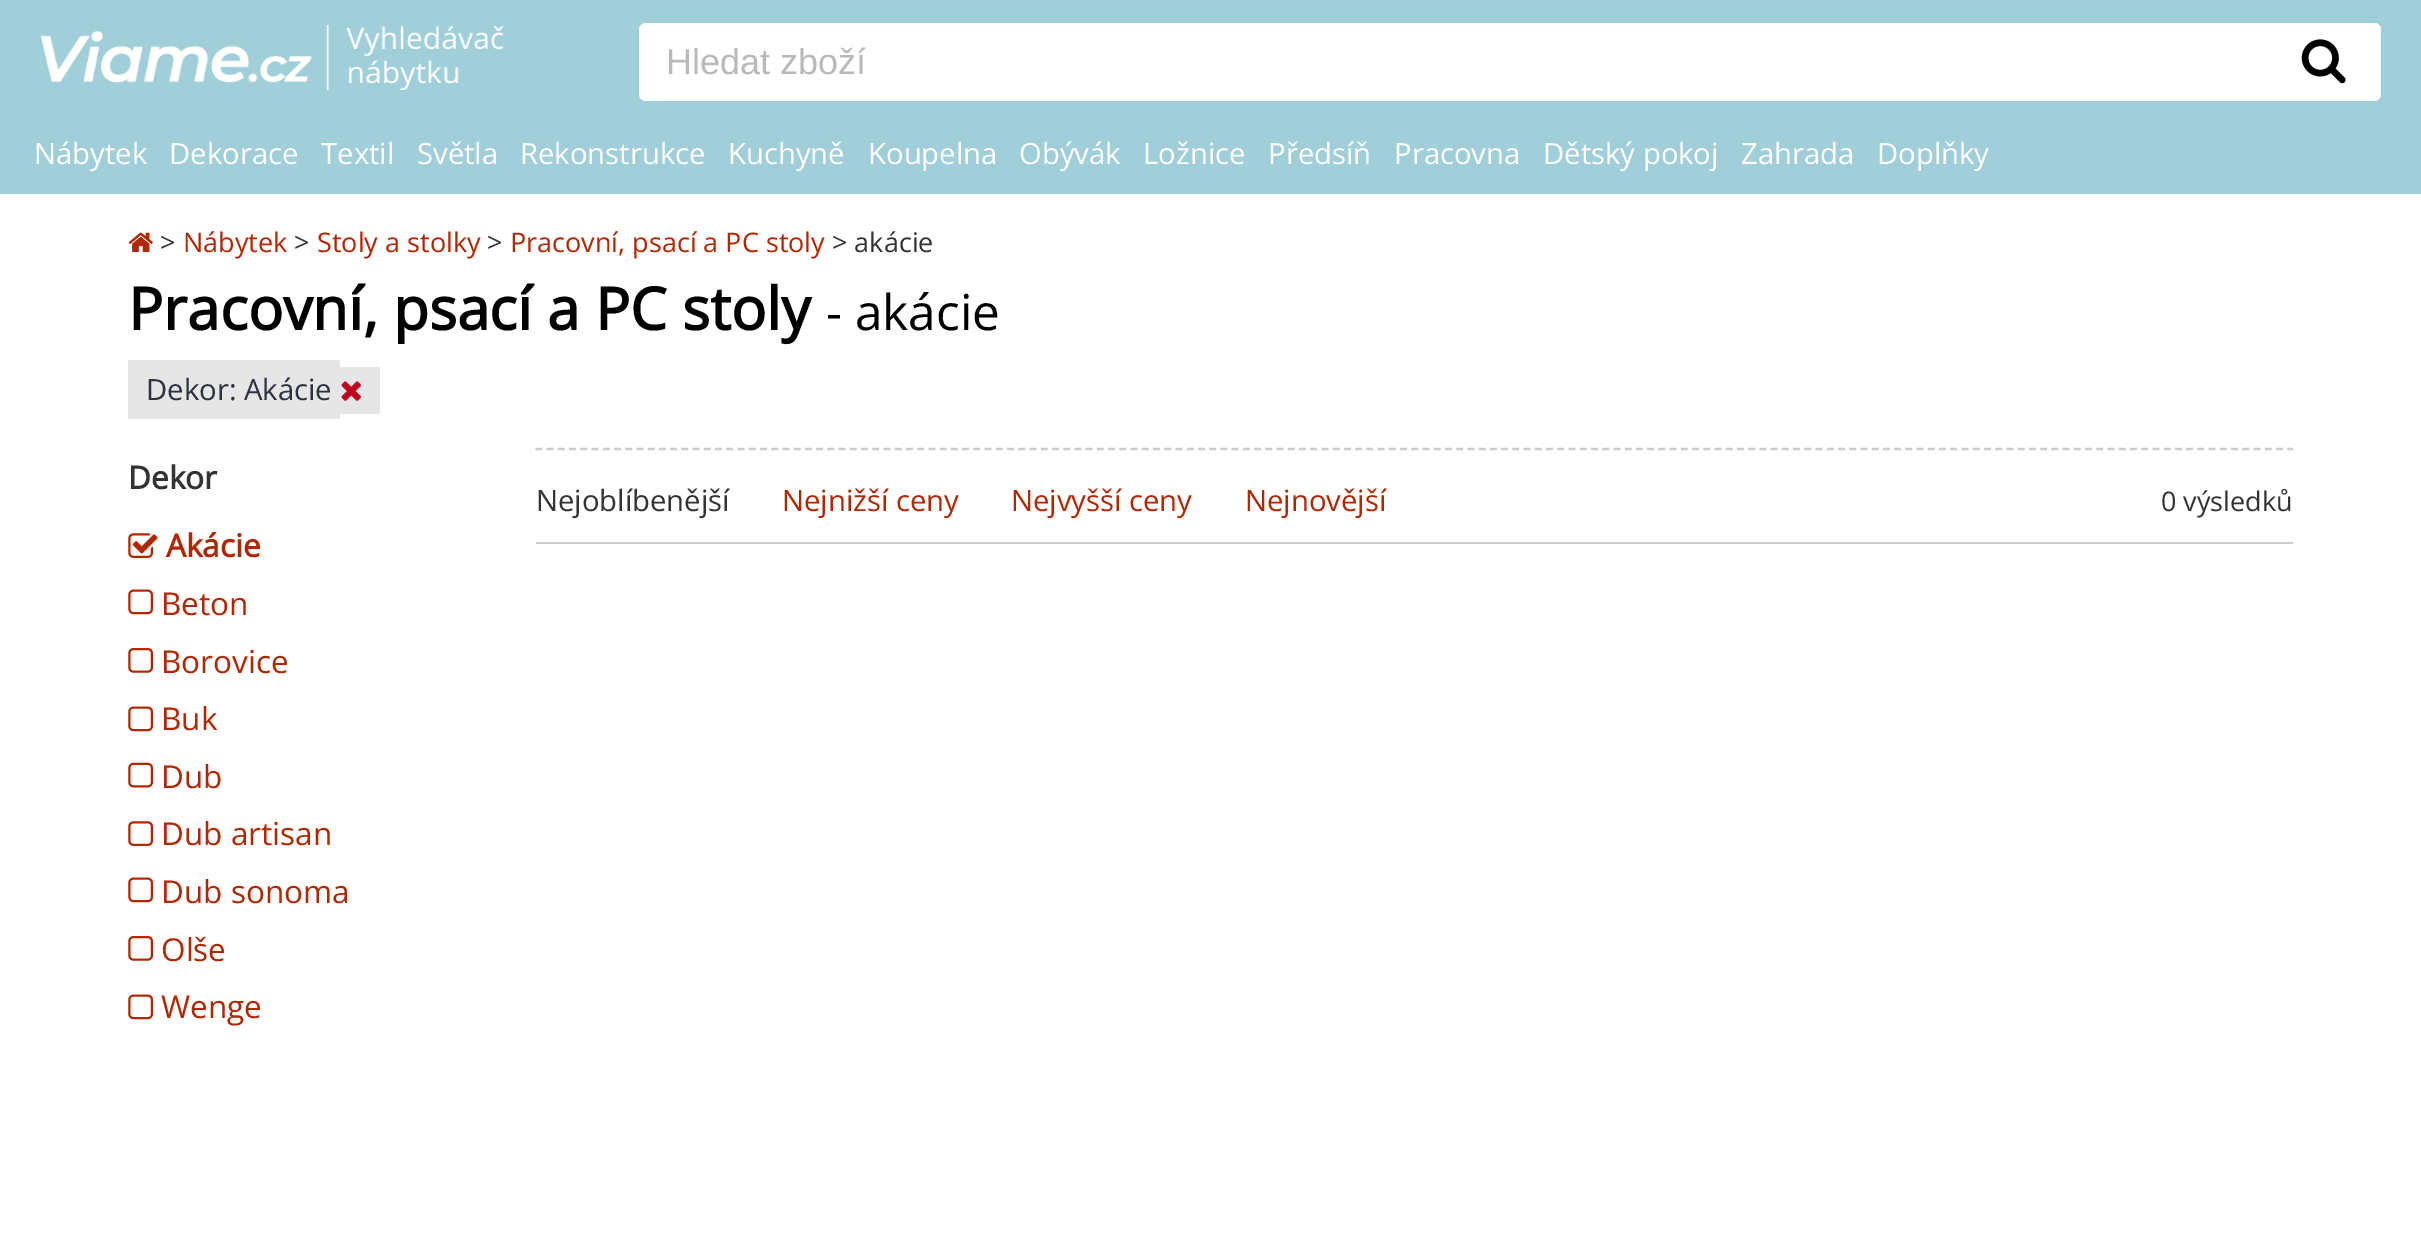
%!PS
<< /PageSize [2421 1251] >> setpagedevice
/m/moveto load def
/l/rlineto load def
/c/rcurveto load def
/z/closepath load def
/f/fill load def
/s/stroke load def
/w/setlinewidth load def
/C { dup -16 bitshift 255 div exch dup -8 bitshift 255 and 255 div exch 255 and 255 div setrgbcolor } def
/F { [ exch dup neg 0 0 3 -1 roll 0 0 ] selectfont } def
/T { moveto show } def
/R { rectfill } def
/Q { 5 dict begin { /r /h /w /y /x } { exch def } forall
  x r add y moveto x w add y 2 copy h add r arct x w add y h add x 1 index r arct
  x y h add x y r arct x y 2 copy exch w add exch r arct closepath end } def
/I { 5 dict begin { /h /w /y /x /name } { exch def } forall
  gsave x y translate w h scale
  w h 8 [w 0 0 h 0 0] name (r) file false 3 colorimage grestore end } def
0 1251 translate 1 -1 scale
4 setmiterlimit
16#FFFFFF C
0 0 2421 1251 R
16#A0CED9 C
0 0 2421 194 R
(1.rgb) 41 25 463 65 I
16#FFFFFF C
639 23 1742 78 7 Q f
/LiberationSans-Regular 36 F
16#B9B9B9 C
(Hledat zboží) 666 74 T
16#FFFFFF C
2268 23 m 106 0 l 4 0 7 3 7 7 c 0 62 l 0 4 -3 7 -7 7 c -106 0 l z f
(2.rgb) 2301 39 45 45 I
/OpenSans-Regular 29.25 F
(Nábytek) 34 164 T
(Dekorace) 169 164 T
(Textil) 321 164 T
(Světla) 417 164 T
(Rekonstrukce) 520 164 T
(Kuchyně) 728 164 T
(Koupelna) 868 164 T
(Obývák) 1019 164 T
(Ložnice) 1143 164 T
(Předsíň) 1268 164 T
(Pracovna) 1394 164 T
(Dětský pokoj) 1543 164 T
(Zahrada) 1741 164 T
(Doplňky) 1877 164 T
(3.rgb) 128 232 25 20 I
/OpenSans-Regular 27 F
16#333333 C
(>) 160 252 T
16#B12704 C
(Nábytek) 183 252 T
16#333333 C
(>) 294 252 T
16#B12704 C
(Stoly a stolky) 317 252 T
16#333333 C
(>) 487 252 T
16#B12704 C
(Pracovní, psací a PC stoly) 510 252 T
16#333333 C
(> akácie) 832 252 T
/OpenSans-Bold 58.5 F
16#000000 C
(Pracovní, psací a PC stoly) 128 330 T
/OpenSans-Regular 49.5 F
(- akácie) 826 330 T
16#E6E6E6 C
128 360 212 59 R
340 367 40 47 R
/OpenSans-Regular 29.25 F
16#2E3140 C
(Dekor: Akácie) 146 400 T
(4.rgb) 341 381 20 20 I
/OpenSans-Bold 31.5 F
16#333333 C
(Dekor) 128 489 T
(5.rgb) 128 533 30 25 I
16#B12704 C
(Akácie) 166 557 T
(6.rgb) 128 589 25 26 I
/OpenSans-Regular 31.5 F
(Beton) 161 615 T
(7.rgb) 128 648 25 25 I
(Borovice) 161 673 T
(6.rgb) 128 706 25 26 I
(Buk) 161 730 T
(8.rgb) 128 762 25 26 I
(Dub) 161 788 T
(9.rgb) 128 821 25 25 I
(Dub artisan) 161 845 T
(6.rgb) 128 877 25 26 I
(Dub sonoma) 161 903 T
(7.rgb) 128 936 25 25 I
(Olše) 161 961 T
(6.rgb) 128 994 25 26 I
(Wenge) 161 1018 T
16#CCCCCC C
2.2 w
[6.75 4.48] 0 setdash
535.5 449 m 1757.5 0 l s
536 542 1757 2 R
/OpenSans-Regular 29.25 F
16#333333 C
(Nejoblíbenější) 536 511 T
16#B12704 C
(Nejnižší ceny) 782 511 T
(Nejvyšší ceny) 1011 511 T
(Nejnovější) 1245 511 T
/OpenSans-Regular 27 F
16#333333 C
(0 výsledků) 2161 511 T
showpage
